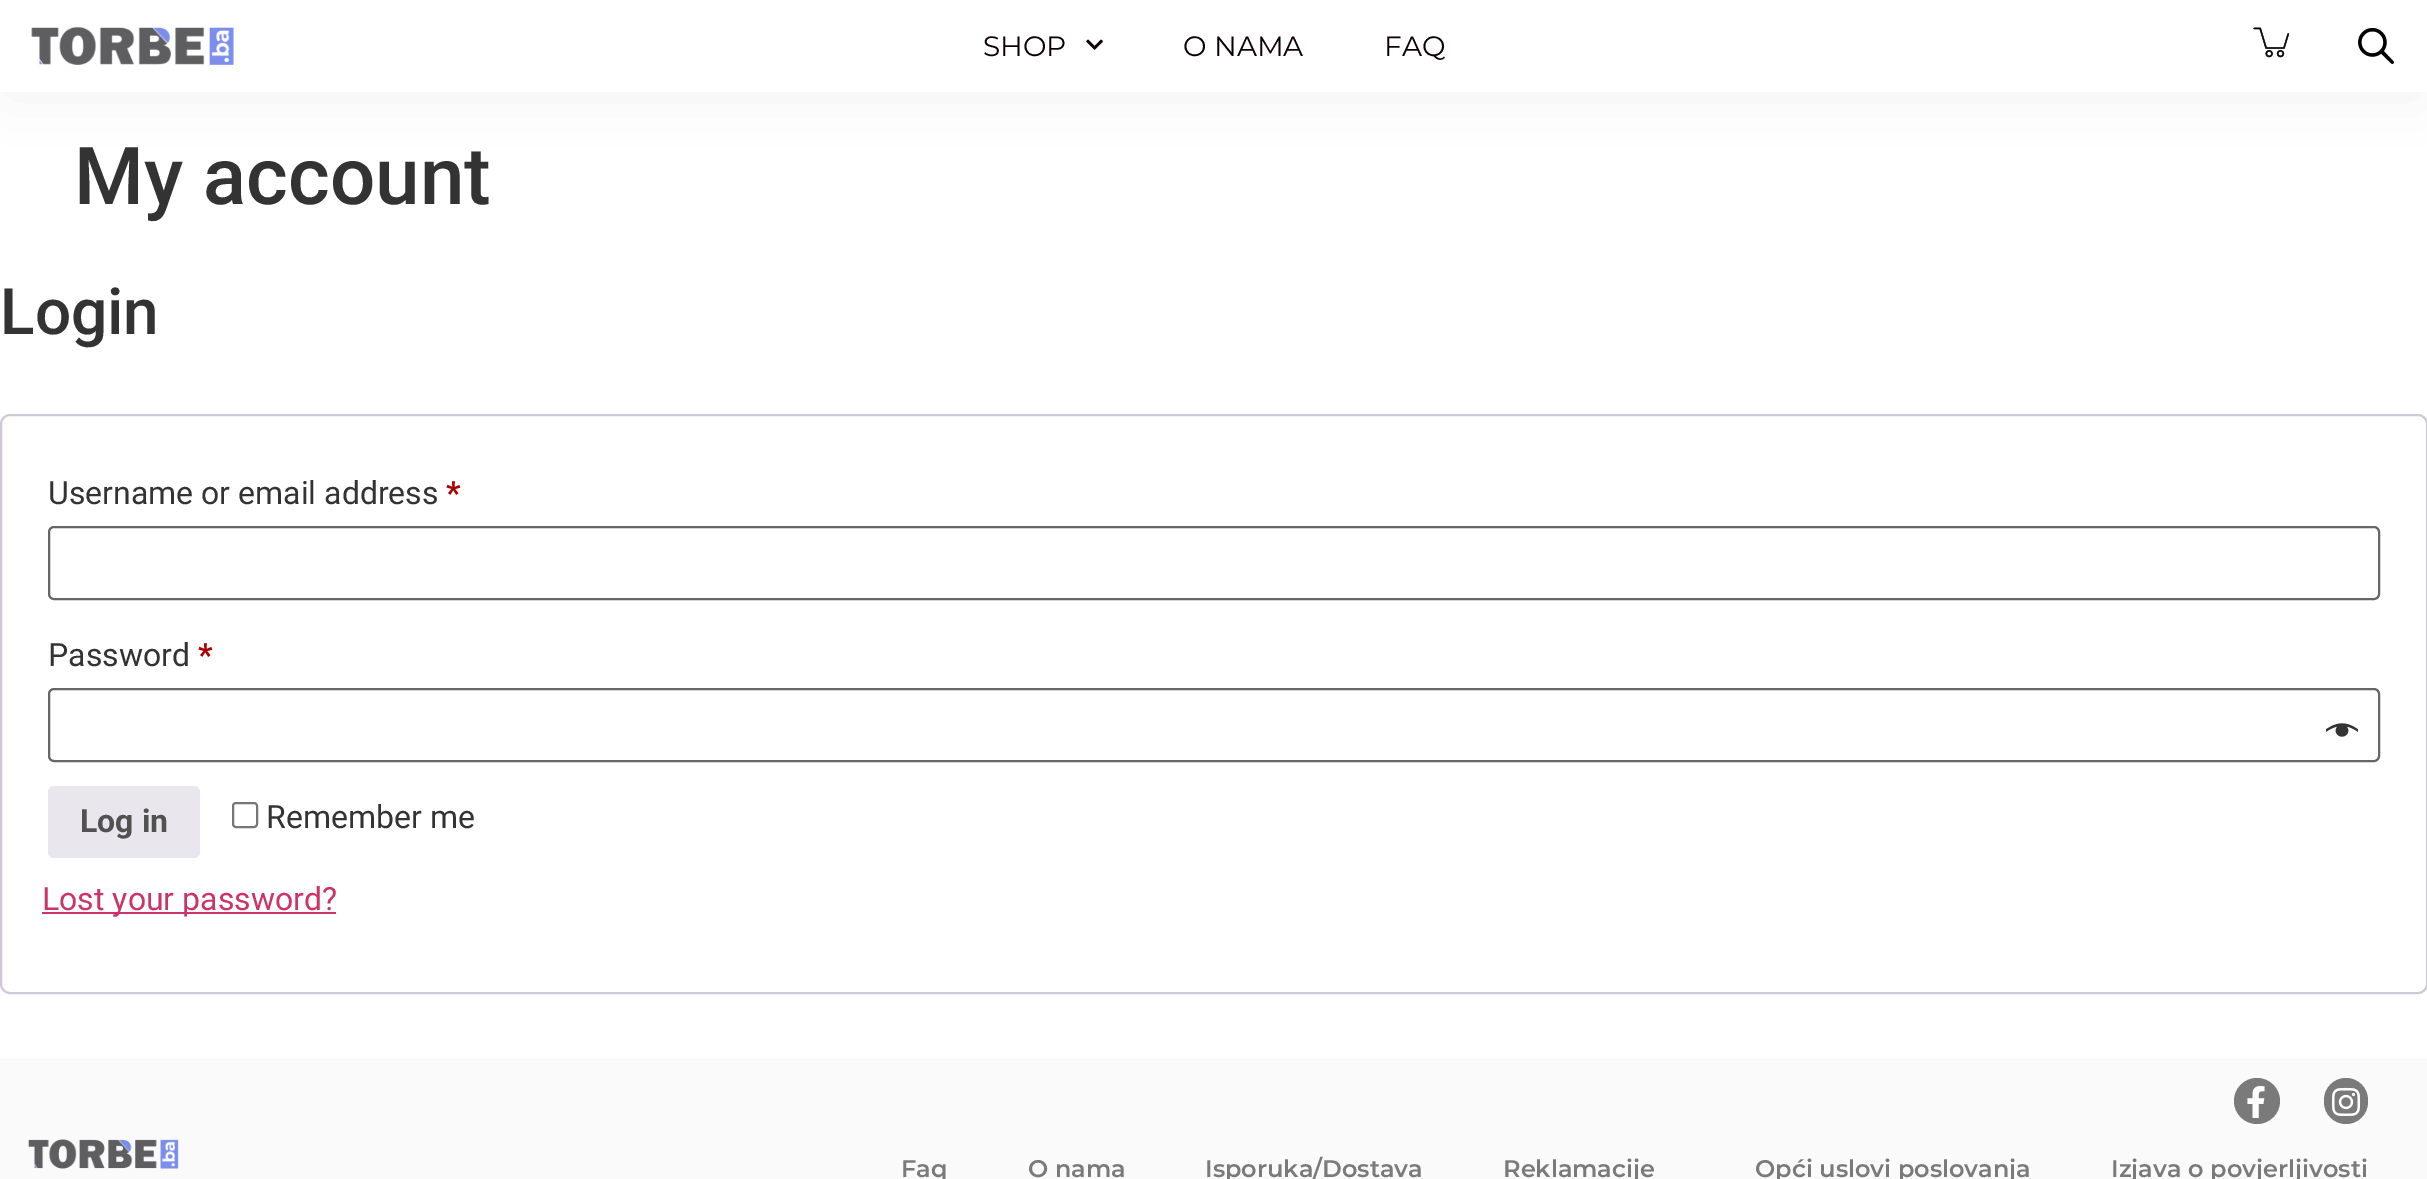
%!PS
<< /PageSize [2427 1179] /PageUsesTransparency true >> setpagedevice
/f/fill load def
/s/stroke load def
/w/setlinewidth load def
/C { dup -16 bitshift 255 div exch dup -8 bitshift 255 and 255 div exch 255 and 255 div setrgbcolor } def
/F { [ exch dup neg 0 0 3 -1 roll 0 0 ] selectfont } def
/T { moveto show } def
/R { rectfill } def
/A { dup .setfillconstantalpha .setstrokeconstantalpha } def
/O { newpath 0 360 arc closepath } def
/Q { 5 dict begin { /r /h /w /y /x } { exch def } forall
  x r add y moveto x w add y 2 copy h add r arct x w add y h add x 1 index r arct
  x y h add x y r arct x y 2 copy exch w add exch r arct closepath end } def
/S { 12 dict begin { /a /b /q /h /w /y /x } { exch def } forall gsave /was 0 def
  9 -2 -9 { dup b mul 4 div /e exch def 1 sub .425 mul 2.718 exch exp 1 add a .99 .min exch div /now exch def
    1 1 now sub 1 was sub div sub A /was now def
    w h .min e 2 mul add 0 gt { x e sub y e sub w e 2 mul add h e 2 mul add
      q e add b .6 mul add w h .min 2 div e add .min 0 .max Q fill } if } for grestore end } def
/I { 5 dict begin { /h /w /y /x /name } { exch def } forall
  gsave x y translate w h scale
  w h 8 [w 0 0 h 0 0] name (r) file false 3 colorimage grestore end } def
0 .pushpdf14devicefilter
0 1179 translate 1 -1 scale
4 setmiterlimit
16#FFFFFF C
0 0 2427 1179 R
16#000000 C
8 20 2412 76 0 30 .05 S
16#FFFFFF C
0 0 2427 92 R
(1.rgb) 31 26 203 39 I
/Montserrat-Regular 28 F
16#0C0101 C
(SHOP) 983 56 T
(2.rgb) 1086 39 17 11 I
(O NAMA) 1183 56 T
(FAQ) 1384 56 T
(3.rgb) 2253 27 37 31 I
(4.rgb) 2358 28 36 36 I
/Roboto-Medium 80 F
16#333333 C
(My account) 74 204 T
/Roboto-Medium 64 F
(Login) 0 334 T
16#CFC8D8 C
2 w
1 415 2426 578 9 Q s
/Roboto-Regular 32 F
16#333333 C
(Username or email address) 48 504 T
/Roboto-Bold 32 F
16#AA0000 C
(*) 446 504 T
16#666666 C
49 527 2330 72 5 Q s
/Roboto-Regular 32 F
16#333333 C
(Password) 48 666 T
/Roboto-Bold 32 F
16#AA0000 C
(*) 198 666 T
16#666666 C
49 689 2330 72 5 Q s
(5.rgb) 2326 723 32 14 I
16#E9E6ED C
48 786 152 72 6 Q f
16#515151 C
(Log in) 80 832 T
16#767676 C
233 803 24 24 3 Q s
/Roboto-Regular 32 F
16#333333 C
(Remember me) 266 828 T
16#CC3366 C
42 912 294 2 R
(Lost your password?) 42 910 T
16#FAFAFA C
0 1058 2427 121 R
(6.rgb) 28 1139 151 30 I
16#7A7A7A C
2257 1101 23 O f
(7.rgb) 2247 1086 18 32 I
2324 1078 44 46 22 Q f
(8.rgb) 2332 1087 29 29 I
/Montserrat-SemiBold 24 F
(Faq) 901 1177 T
(O nama) 1028 1177 T
(Isporuka/Dostava) 1205 1177 T
(Reklamacije) 1503 1177 T
(Opći uslovi poslovanja) 1755 1177 T
(Izjava o povjerljivosti) 2111 1177 T
.poppdf14devicefilter showpage
